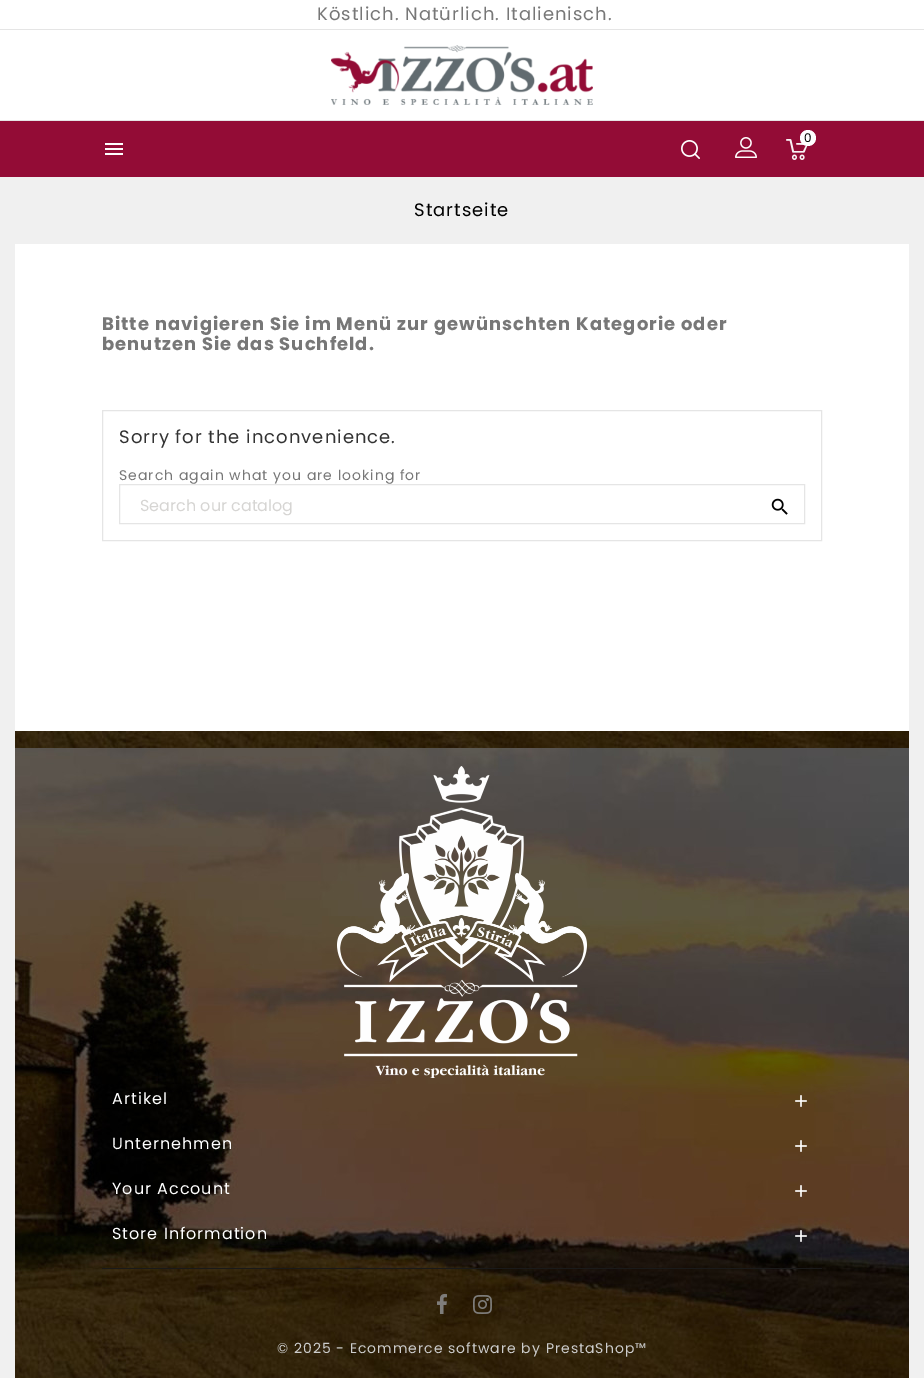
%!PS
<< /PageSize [924 1378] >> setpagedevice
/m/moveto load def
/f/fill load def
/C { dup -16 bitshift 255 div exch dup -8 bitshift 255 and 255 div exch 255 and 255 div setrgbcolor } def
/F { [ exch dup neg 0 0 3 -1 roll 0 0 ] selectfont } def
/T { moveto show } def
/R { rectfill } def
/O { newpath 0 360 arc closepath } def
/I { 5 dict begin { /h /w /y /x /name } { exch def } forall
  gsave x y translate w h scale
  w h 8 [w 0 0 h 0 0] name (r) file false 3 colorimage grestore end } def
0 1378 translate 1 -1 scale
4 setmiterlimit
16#FFFFFF C
0 0 924 1378 R
16#E5E5E5 C
0 120 924 1 R
0 29 924 1 R
/Poppins-Regular 18 F
16#777777 C
317 20 m 1 0 (Köstlich. Natürlich. Italienisch.) ashow
(1.rgb) 331 45 262 60 I
16#930C36 C
0 121 924 56 R
(2.rgb) 105 143 18 12 I
(3.rgb) 735 137 22 21 I
(4.rgb) 786 139 22 21 I
16#FFFFFF C
808 138 8 O f
/Poppins-Regular 12 F
16#000000 C
804 142 m 1 0 (0) ashow
(5.rgb) 681 140 19 19 I
16#F0F0F0 C
0 177 924 1201 R
16#FFFFFF C
15 244 894 487 R
/Poppins-Regular 18 F
16#000000 C
414 216 m 1 0 (Startseite) ashow
/Poppins-Bold 18 F
16#777777 C
102 330 m 1 0 (Bitte navigieren Sie im Menü zur gewünschten Kategorie oder) ashow
102 350 m 1 0 (benutzen Sie das Suchfeld.) ashow
16#E5E5E5 C
102.5 410.5 719 130 rectstroke
/Poppins-Regular 18 F
16#333333 C
119 443 m 1 0 (Sorry for the inconvenience.) ashow
/Poppins-Regular 14 F
16#777777 C
119 480 m 1 0 (Search again what you are looking for) ashow
16#E5E5E5 C
119.5 484.5 685 39 rectstroke
/Poppins-Regular 16 F
16#D6D5D3 C
(Search our catalog) 140 511 T
(6.rgb) 771 498 17 17 I
(7.rgb) 15 731 894 647 I
(8.rgb) 337 766 250 312 I
16#FFFFFF C
112 1104 m 1 0 (Artikel) ashow
(9.rgb) 795 1095 12 12 I
112 1149 m 1 0 (Unternehmen) ashow
(10.rgb) 795 1140 12 12 I
112 1194 m 1 0 (Your Account) ashow
(11.rgb) 795 1185 12 12 I
112 1239 m 1 0 (Store Information) ashow
(12.rgb) 795 1230 12 12 I
16#1A1A1A C
102 1268 720 1 R
(13.rgb) 437 1294 10 20 I
(14.rgb) 473 1295 19 19 I
/Poppins-Regular 14 F
16#CCCCCC C
277 1353 m 1 0 (© 2025 - Ecommerce software by PrestaShop™) ashow
showpage
